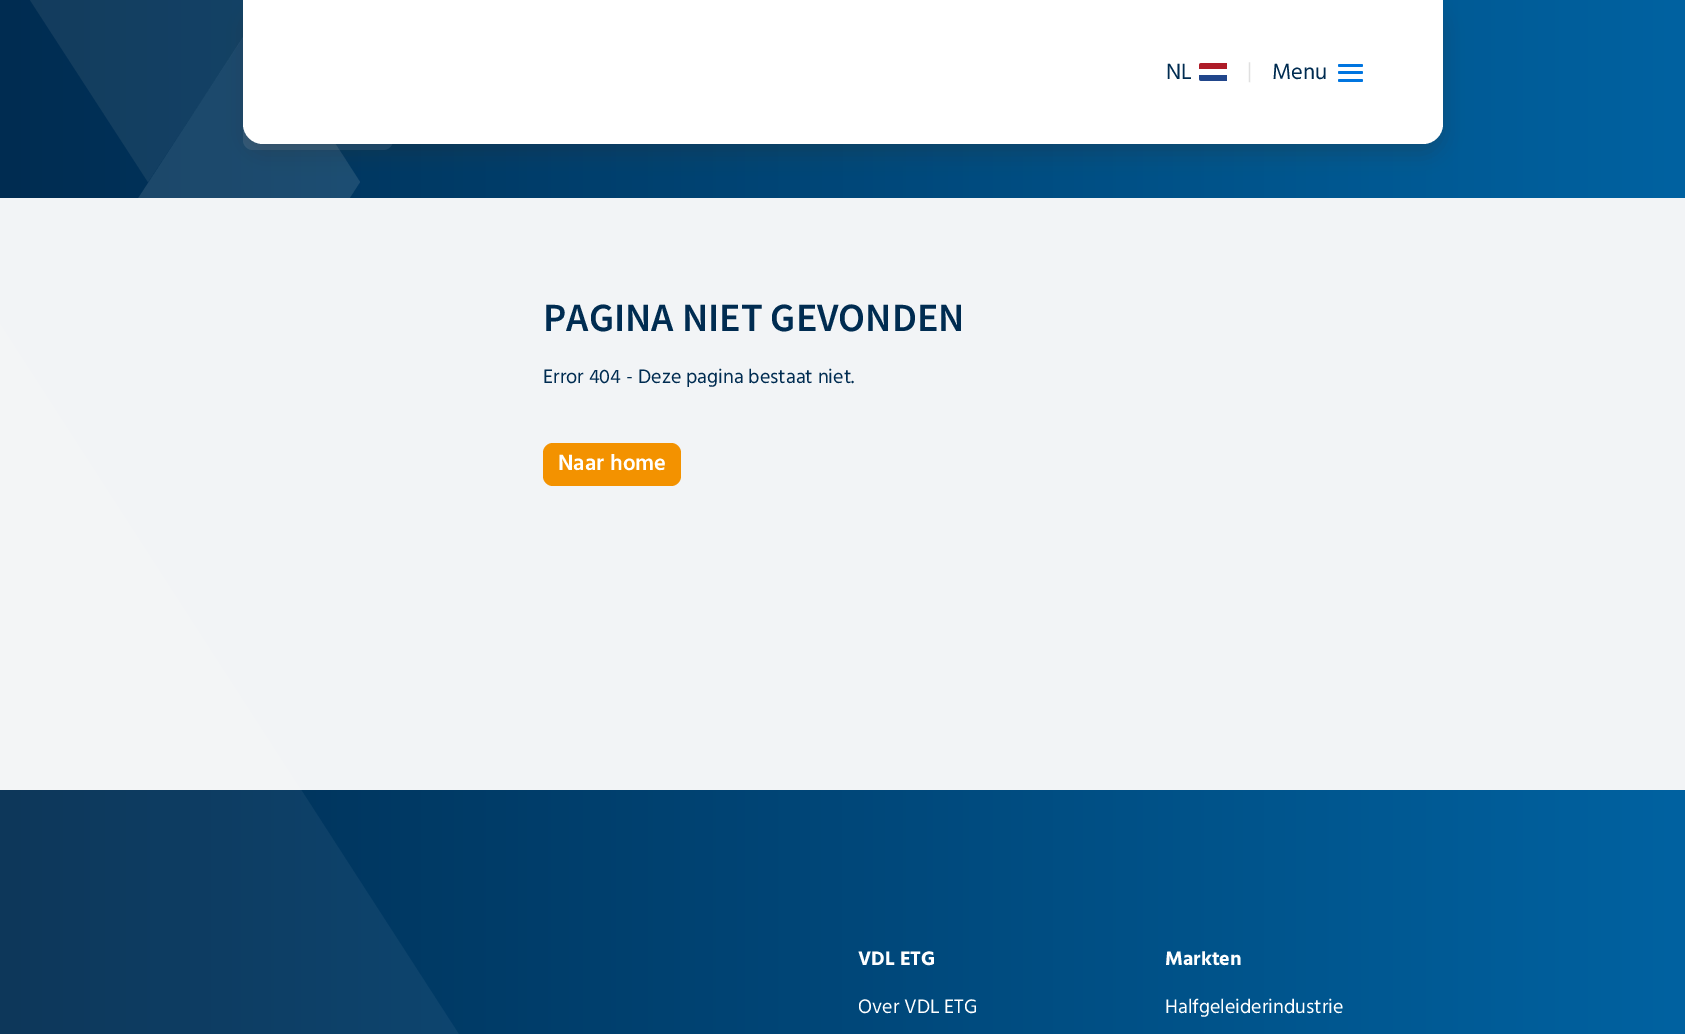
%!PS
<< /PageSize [1685 1034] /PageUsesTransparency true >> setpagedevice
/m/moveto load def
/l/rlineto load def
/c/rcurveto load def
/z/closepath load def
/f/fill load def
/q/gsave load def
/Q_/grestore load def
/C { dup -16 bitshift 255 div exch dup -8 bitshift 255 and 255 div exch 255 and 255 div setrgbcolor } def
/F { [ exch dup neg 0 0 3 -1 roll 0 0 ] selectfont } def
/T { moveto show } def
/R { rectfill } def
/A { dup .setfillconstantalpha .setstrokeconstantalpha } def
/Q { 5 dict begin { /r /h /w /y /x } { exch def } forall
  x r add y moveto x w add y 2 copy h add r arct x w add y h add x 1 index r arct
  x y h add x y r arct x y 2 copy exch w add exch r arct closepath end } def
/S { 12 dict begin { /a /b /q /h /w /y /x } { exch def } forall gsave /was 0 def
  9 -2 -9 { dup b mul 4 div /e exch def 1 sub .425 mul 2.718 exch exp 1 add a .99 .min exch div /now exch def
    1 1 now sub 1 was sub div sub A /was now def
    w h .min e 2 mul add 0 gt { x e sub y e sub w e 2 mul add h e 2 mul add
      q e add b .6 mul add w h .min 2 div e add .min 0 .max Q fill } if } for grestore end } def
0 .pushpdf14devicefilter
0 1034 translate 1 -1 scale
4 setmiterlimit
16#F2F4F6 C
0 0 1685 1034 R
q 0 0 m 1685 0 l 0 198 l -1685 0 l z clip newpath
<< /ShadingType 2 /ColorSpace /DeviceRGB /Coords [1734 42 0 43] /Extend [true true] /Function << /FunctionType 2 /Domain [0 1] /C0 [0 .392 .639] /C1 [0 .173 .318] /N 1 >> >> shfill Q_
q
0 0 360 198 rectclip
0.15 A
16#BFC9D0 C
-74 524 m 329 -505 l 105 163 l -222 342 l z f
Q_
0.15 A
16#82929A C
-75 -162 m 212 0 l 118 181 l -107 163 l z f
0.1 A
16#FFFFFF C
243 115 150 35 10 Q f
1 A
16#2F2F2F C
243 10 1200 144 20 10 .25 S
16#FFFFFF C
243 0 m 1200 0 l 0 124 l 0 11 -9 20 -20 20 c -1160 0 l -11 0 -20 -9 -20 -20 c z f
/Hind-Regular 22.5 F
16#002C51 C
(NL) 1166 79 T
q
1199 63 29 18 2.5 Q clip newpath
16#21468B C
1199 75 m 28 0 l 0 6 l -25.5 0 l -1.5 0 -2.5 -1 -2.5 -2.5 c z f
16#AE1C28 C
1201.5 63 m 25.5 0 l 0 6 l -28 0 l 0 -3.5 l 0 -1.5 1 -2.5 2.5 -2.5 c z f
Q_
16#E0E0E0 C
(|) 1247 78 T
16#002C51 C
(Menu) 1272 79 T
16#0075E0 C
1338 64 25 3 1.5 Q f
1338 71 25 3 1.5 Q f
1338 79 25 3 1.5 Q f
/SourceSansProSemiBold-SemiBold 40 F
16#002C51 C
(PAGINA NIET GEVONDEN) 543 331 T
/Hind-Regular 20 F
(Error 404 - Deze pagina bestaat niet.) 543 383 T
16#F39200 C
543 443 138 43 10 Q f
/Hind-SemiBold 22.5 F
16#FFFFFF C
(Naar home) 558 470 T
q 0 790 m 1685 0 l 0 244 l -1685 0 l z clip newpath
<< /ShadingType 2 /ColorSpace /DeviceRGB /Coords [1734 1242 0 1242] /Extend [true true] /Function << /FunctionType 2 /Domain [0 1] /C0 [0 .392 .639] /C1 [0 .173 .318] /N 1 >> >> shfill Q_
0.05 A
-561 274 m 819 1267 l 264 -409 l -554 -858 l z f
/Hind-Bold 20 F
1 A
(VDL ETG) 858 965 T
/Hind-Regular 20 F
(Over VDL ETG) 858 1013 T
/Hind-Bold 20 F
(Markten) 1165 965 T
/Hind-Regular 20 F
(Halfgeleiderindustrie) 1165 1013 T
.poppdf14devicefilter showpage
